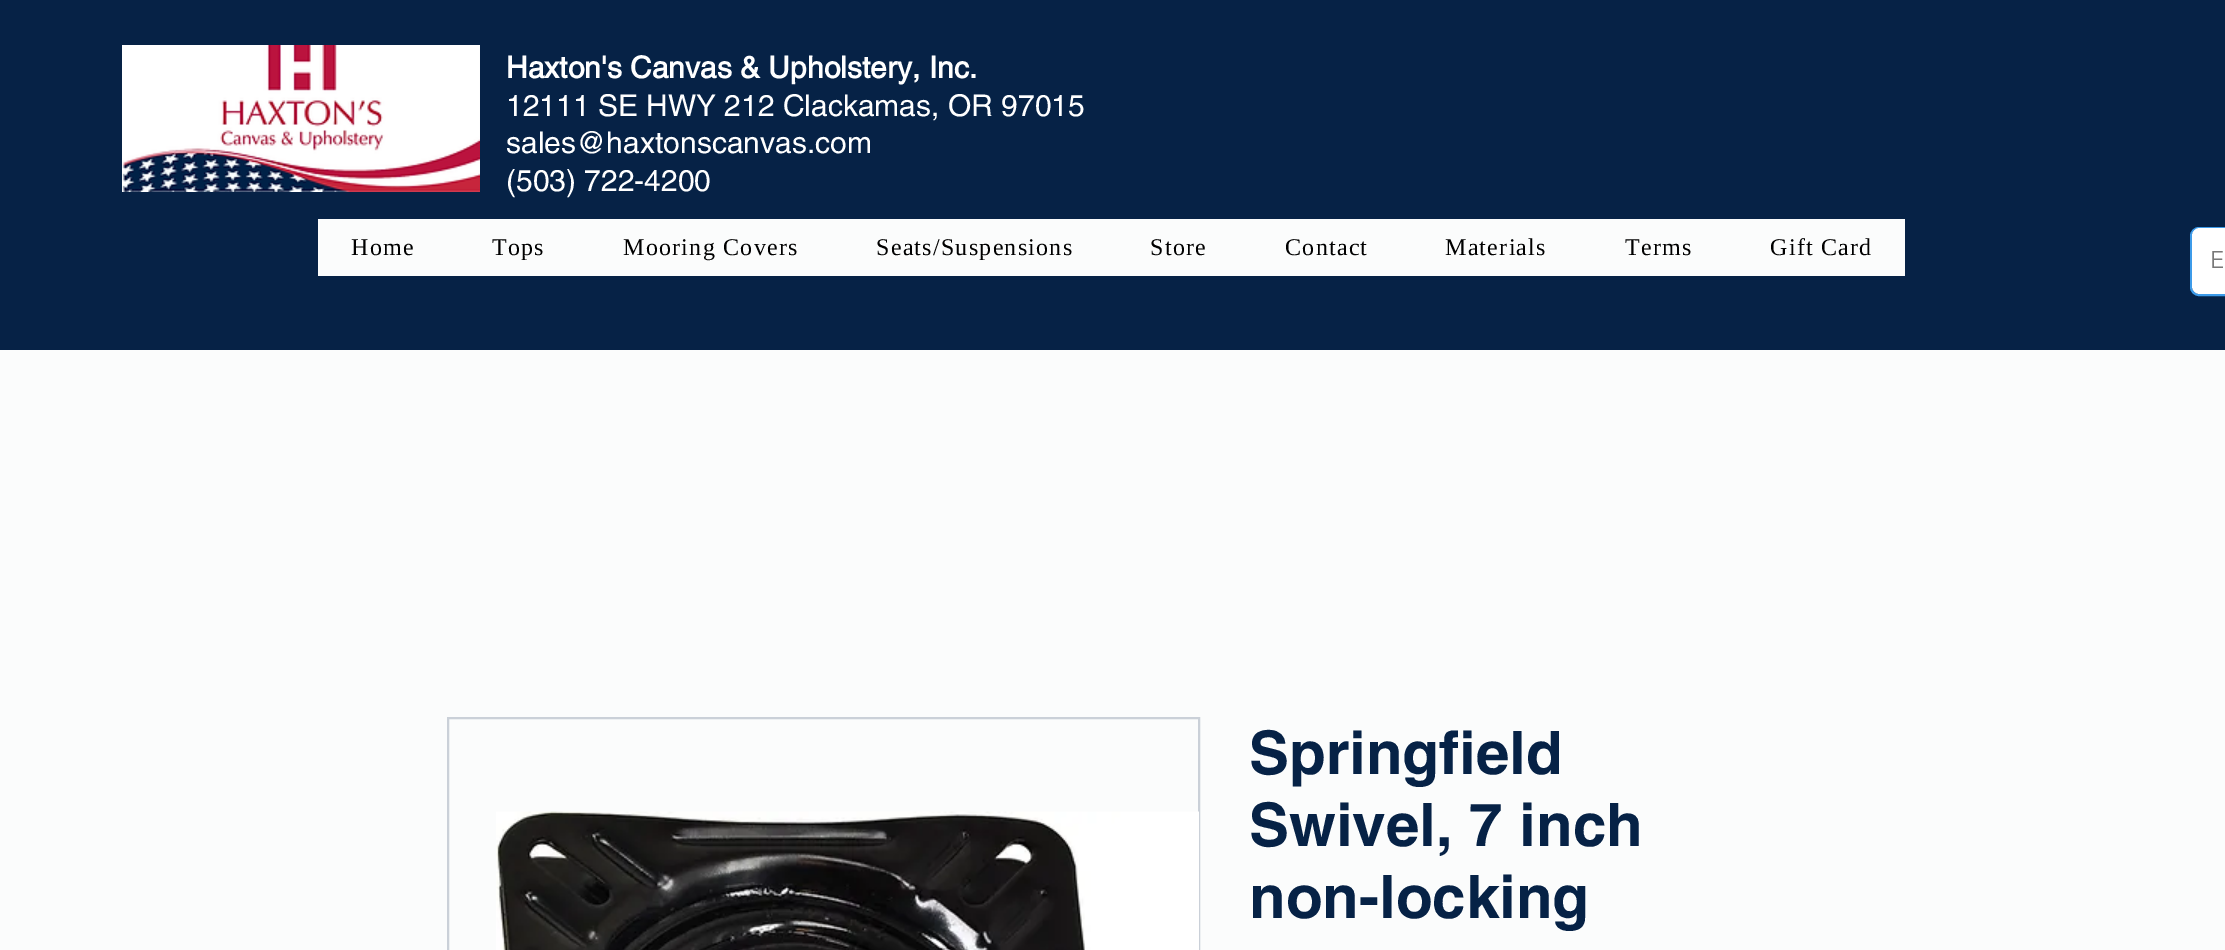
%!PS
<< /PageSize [2225 950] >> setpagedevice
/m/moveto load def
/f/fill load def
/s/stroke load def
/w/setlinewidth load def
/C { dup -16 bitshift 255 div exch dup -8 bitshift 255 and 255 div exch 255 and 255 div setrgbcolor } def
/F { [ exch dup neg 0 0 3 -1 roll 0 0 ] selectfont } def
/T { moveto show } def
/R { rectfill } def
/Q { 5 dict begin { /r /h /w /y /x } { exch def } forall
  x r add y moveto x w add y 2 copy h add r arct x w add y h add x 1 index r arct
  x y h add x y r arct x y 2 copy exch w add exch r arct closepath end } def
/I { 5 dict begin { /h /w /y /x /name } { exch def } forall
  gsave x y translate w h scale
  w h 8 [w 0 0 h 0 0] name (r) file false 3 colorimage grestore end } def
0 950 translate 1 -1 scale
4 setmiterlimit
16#FBFCFC C
0 0 2225 950 R
16#062246 C
0 0 2225 350 R
(1.rgb) 122 45 358 147 I
/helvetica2-Bold 30 F
16#FFFFFF C
(Haxton's Canvas & Upholstery, Inc.) 506 78 T
/helvetica-Regular 30 F
(12111 SE HWY 212 Clackamas, OR 97015) 506 116 T
(sales@haxtonscanvas.com) 506 153 T
(\(503\) 722-4200) 506 191 T
16#FBFCFC C
318 219 1587 57 R
/LiberationSerif-Regular 24 F
16#000000 C
351 255 m 1.25 0 (Home) ashow
492 255 m 1.25 0 (Tops) ashow
623 255 m 1.25 0 (Mooring Covers) ashow
876 255 m 1.25 0 (Seats/Suspensions) ashow
1150 255 m 1.25 0 (Store) ashow
1285 255 m 1.25 0 (Contact) ashow
1445 255 m 1.25 0 (Materials) ashow
1625 255 m 1.25 0 (Terms) ashow
1770 255 m 1.25 0 (Gift Card) ashow
16#3D9BE9 C
2 w
2191 228 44 67 8 Q s
16#FFFFFF C
2192 228 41 66 8 Q f
/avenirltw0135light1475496-Light 24 F
16#787878 C
(E) 2210 268 T
16#CAD0D8 C
448 718 751 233 rectstroke
(2.rgb) 496 811 703 139 I
/helvetica-Bold 60 F
16#062246 C
(Springfield) 1249 774 T
(Swivel, 7 inch) 1249 846 T
(non-locking) 1249 918 T
showpage
